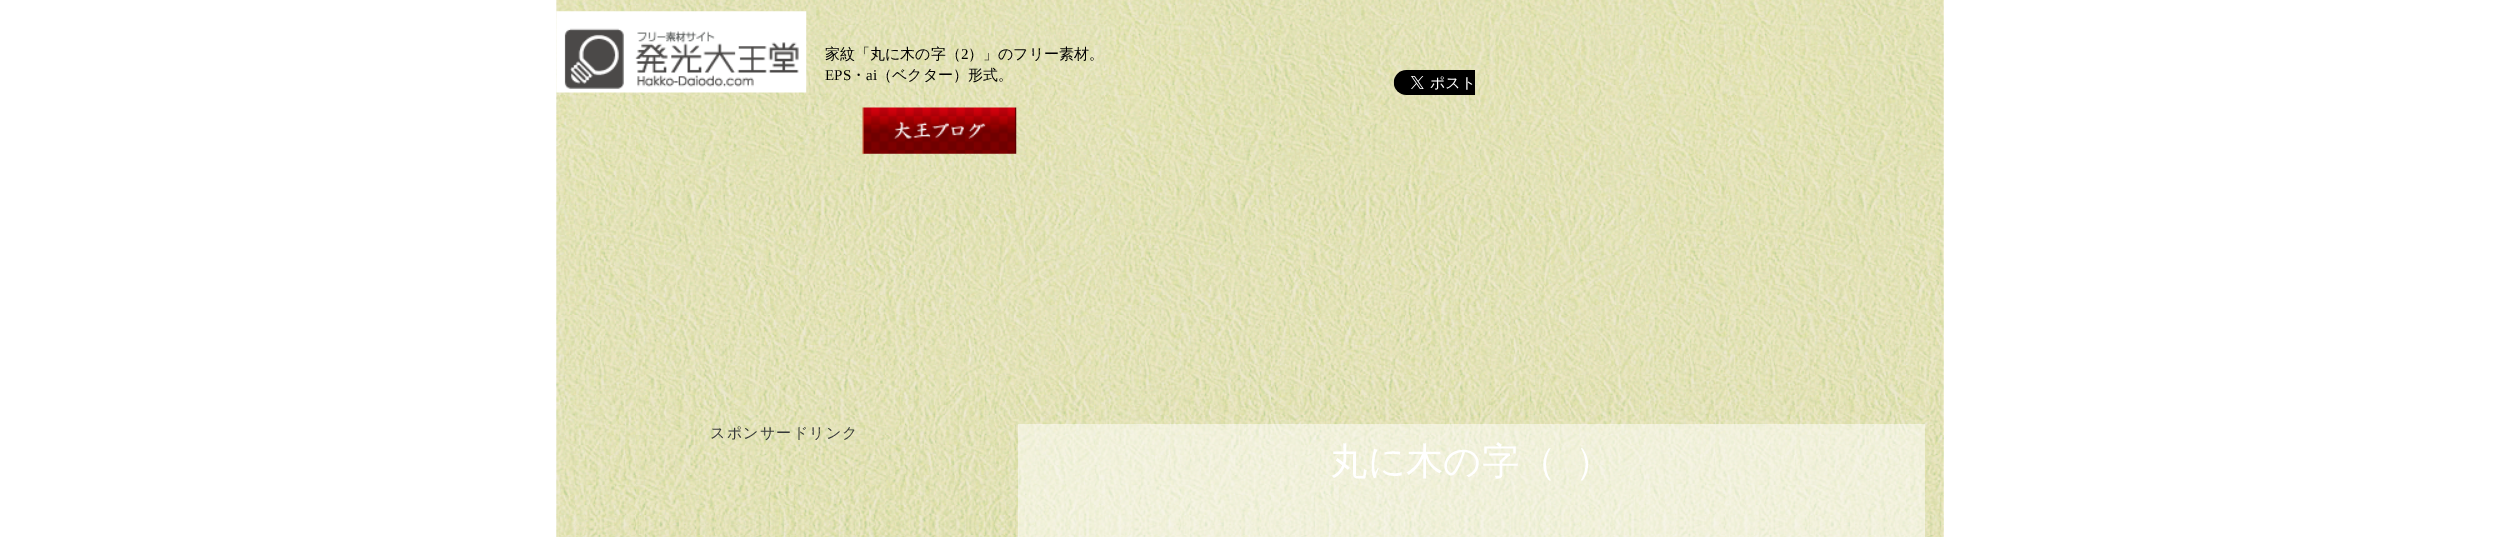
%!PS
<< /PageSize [2499 537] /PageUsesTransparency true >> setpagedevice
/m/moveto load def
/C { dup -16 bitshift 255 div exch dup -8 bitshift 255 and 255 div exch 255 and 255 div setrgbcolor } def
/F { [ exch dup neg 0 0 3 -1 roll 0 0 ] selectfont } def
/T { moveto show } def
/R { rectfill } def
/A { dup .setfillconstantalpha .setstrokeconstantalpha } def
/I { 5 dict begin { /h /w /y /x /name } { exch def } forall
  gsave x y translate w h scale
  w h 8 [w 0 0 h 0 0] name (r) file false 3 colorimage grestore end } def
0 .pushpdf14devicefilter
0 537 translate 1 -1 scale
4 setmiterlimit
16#FFFFFF C
0 0 2499 537 R
(1.rgb) 556 0 1388 537 I
(2.rgb) 556 11 251 82 I
/WenQuanYiZenHei-Medium 15 F
16#000000 C
(家紋「丸に木の字（) 825 59 T
/LiberationSerif-Regular 15 F
(2) 961 59 T
/WenQuanYiZenHei-Medium 15 F
(）」のフリー素材。) 968 59 T
/LiberationSerif-Regular 15 F
(EPS) 825 80 T
/WenQuanYiZenHei-Medium 15 F
(・) 851 80 T
/LiberationSerif-Regular 15 F
(ai) 866 80 T
/WenQuanYiZenHei-Medium 15 F
(（ベクター）形式。) 877 80 T
(3.rgb) 1393 70 82 25 I
(4.rgb) 862 107 155 47 I
16#353838 C
710 438 m 1.25 0 (スポンサードリンク) ashow
0.5 A
16#FFFFFF C
1018 424 907 113 R
/WenQuanYiZenHei-Medium 37.5 F
1 A
(丸に木の字（) 1330 474 T
(）) 1575 474 T
.poppdf14devicefilter showpage
